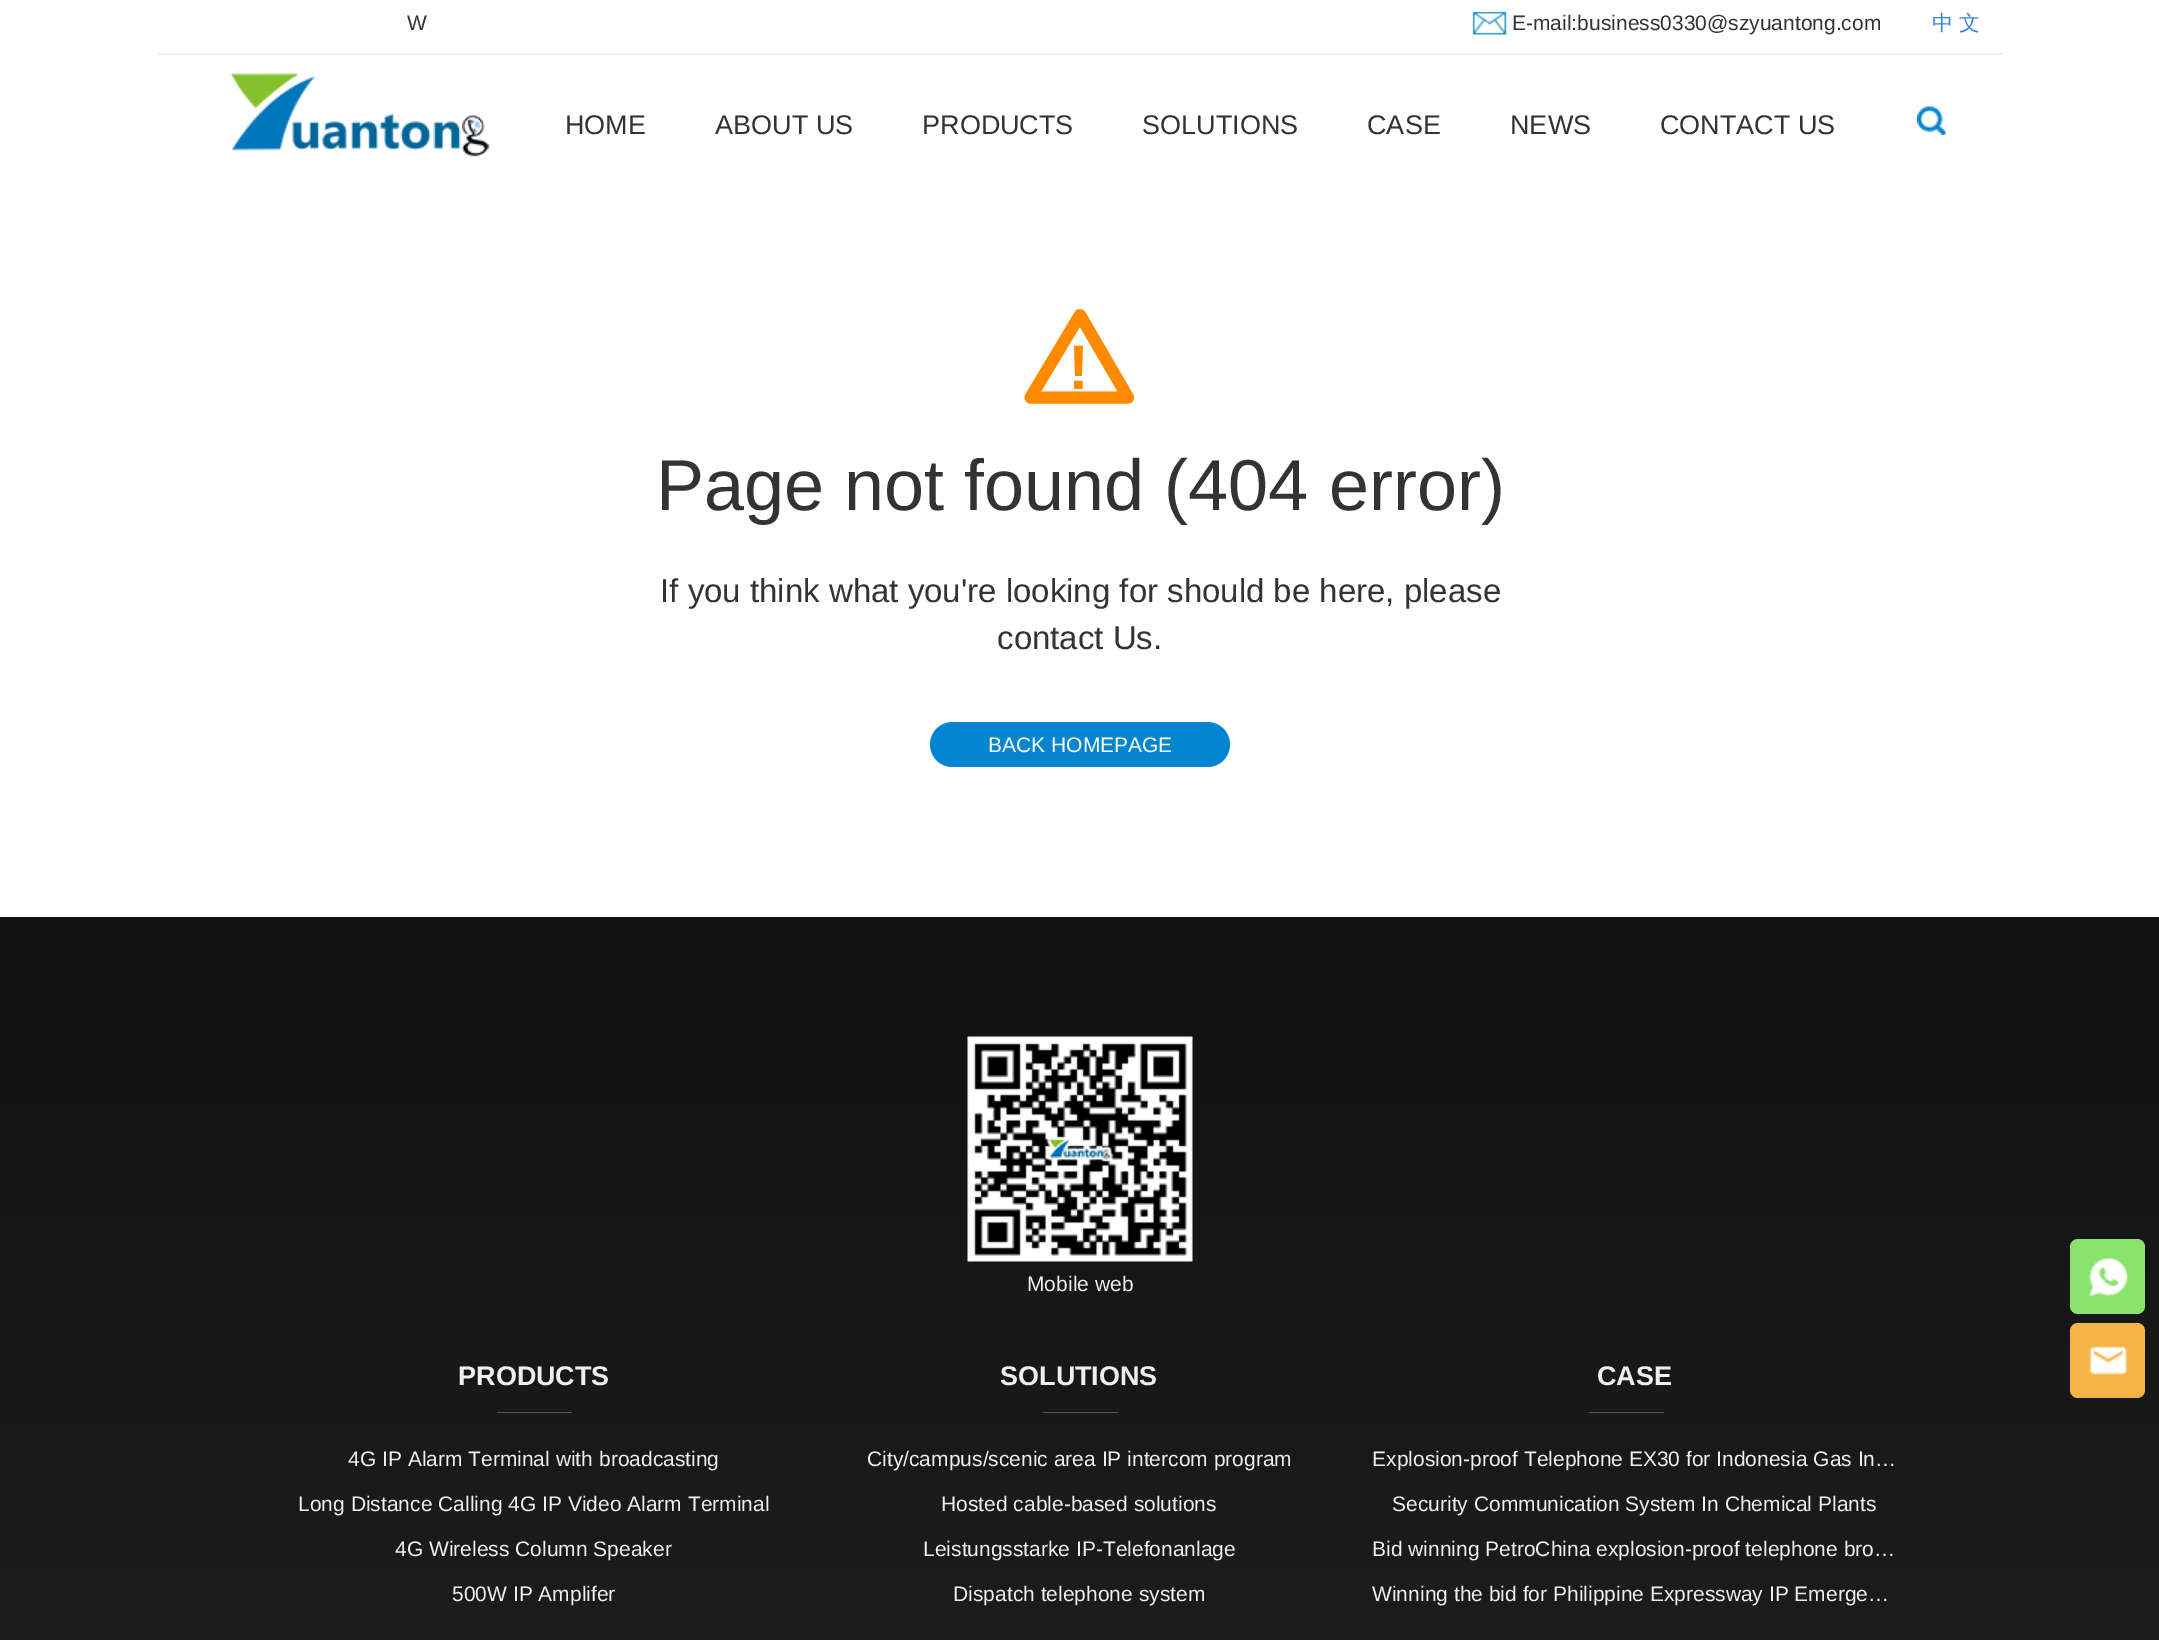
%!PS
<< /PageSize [2159 1640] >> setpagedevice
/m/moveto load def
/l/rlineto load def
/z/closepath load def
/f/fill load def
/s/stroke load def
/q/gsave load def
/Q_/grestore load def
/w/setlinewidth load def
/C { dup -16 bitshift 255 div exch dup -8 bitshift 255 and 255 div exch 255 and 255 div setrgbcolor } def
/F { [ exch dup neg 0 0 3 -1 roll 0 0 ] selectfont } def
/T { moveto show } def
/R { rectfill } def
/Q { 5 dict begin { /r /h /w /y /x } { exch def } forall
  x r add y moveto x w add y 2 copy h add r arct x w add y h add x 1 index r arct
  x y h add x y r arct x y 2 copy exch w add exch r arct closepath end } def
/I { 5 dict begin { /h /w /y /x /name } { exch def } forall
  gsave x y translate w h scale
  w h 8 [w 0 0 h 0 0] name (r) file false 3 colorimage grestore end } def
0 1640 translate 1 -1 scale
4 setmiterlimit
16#FFFFFF C
0 0 2159 1640 R
16#EFEFEF C
158 53 1845 2 R
/LiberationSans-Regular 21 F
16#333333 C
(W) 407 30 T
(1.rgb) 1472 11 35 24 I
(E-mail:business0330@szyuantong.com) 1512 30 T
/WenQuanYiZenHei-Medium 21 F
16#3282E6 C
(中 文) 1932 30 T
(2.rgb) 230 73 260 84 I
/LiberationSans-Regular 27 F
16#333333 C
(HOME) 565 134 T
(ABOUT US) 715 134 T
(PRODUCTS) 922 134 T
(SOLUTIONS) 1142 134 T
(CASE) 1367 134 T
(NEWS) 1510 134 T
(CONTACT US) 1660 134 T
(3.rgb) 1917 106 29 29 I
16#FF8A00 C
12 w
1 setlinejoin
1080 315 m -49.5 82.5 l 97.5 0 l z s
/LiberationSans-Bold 63 F
(!) 1068 389 T
/LiberationSans-Regular 72 F
16#333333 C
(Page not found \(404 error\)) 656 510 T
/LiberationSans-Regular 33 F
(If you think what you're looking for should be here, please) 660 602 T
(contact Us.) 997 649 T
16#0385D0 C
930 722 300 45 22.5 Q f
/LiberationSans-Regular 21 F
16#FFFFFF C
(BACK HOMEPAGE) 988 752 T
q 0 917 m 2159 0 l 0 723 l -2159 0 l z clip newpath
<< /ShadingType 2 /ColorSpace /DeviceRGB /Coords [1080 916 1080 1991] /Extend [true true] /Function << /FunctionType 2 /Domain [0 1] /C0 [.067 .067 .067] /C1 [.133 .133 .133] /N 1 >> >> shfill Q_
(4.rgb) 967 1036 226 226 I
16#EFEFEF C
(Mobile web) 1027 1291 T
/LiberationSans-Bold 27 F
(PRODUCTS) 458 1385 T
16#52565A C
497 1412 75 1 R
/LiberationSans-Regular 21 F
16#EFEFEF C
(4G IP Alarm Terminal with broadcasting) 348 1466 T
(Long Distance Calling 4G IP Video Alarm Terminal) 298 1511 T
(4G Wireless Column Speaker) 395 1556 T
(500W IP Amplifer) 452 1601 T
/LiberationSans-Bold 27 F
(SOLUTIONS) 1000 1385 T
16#52565A C
1043 1412 75 1 R
/LiberationSans-Regular 21 F
16#EFEFEF C
(City/campus/scenic area IP intercom program) 867 1466 T
(Hosted cable-based solutions) 941 1511 T
(Leistungsstarke IP-Telefonanlage) 923 1556 T
(Dispatch telephone system) 953 1601 T
/LiberationSans-Bold 27 F
(CASE) 1597 1385 T
16#52565A C
1589 1412 75 1 R
/LiberationSans-Regular 21 F
16#EFEFEF C
(Explosion-proof Telephone EX30 for Indonesia Gas In…) 1372 1466 T
(Security Communication System In Chemical Plants) 1392 1511 T
(Bid winning PetroChina explosion-proof telephone bro…) 1372 1556 T
(Winning the bid for Philippine Expressway IP Emerge…) 1372 1601 T
16#8AE36D C
2070 1239 75 75 8 Q f
(5.rgb) 2089 1258 39 39 I
16#F5B246 C
2070 1323 75 75 8 Q f
(6.rgb) 2089 1346 39 29 I
showpage
